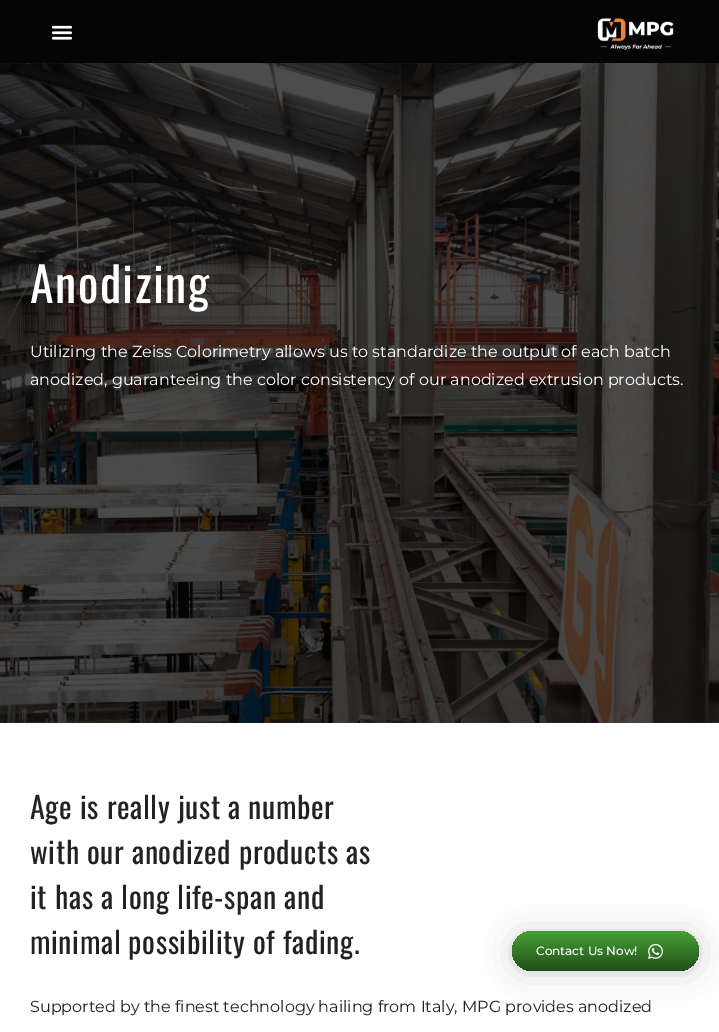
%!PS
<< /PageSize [719 1032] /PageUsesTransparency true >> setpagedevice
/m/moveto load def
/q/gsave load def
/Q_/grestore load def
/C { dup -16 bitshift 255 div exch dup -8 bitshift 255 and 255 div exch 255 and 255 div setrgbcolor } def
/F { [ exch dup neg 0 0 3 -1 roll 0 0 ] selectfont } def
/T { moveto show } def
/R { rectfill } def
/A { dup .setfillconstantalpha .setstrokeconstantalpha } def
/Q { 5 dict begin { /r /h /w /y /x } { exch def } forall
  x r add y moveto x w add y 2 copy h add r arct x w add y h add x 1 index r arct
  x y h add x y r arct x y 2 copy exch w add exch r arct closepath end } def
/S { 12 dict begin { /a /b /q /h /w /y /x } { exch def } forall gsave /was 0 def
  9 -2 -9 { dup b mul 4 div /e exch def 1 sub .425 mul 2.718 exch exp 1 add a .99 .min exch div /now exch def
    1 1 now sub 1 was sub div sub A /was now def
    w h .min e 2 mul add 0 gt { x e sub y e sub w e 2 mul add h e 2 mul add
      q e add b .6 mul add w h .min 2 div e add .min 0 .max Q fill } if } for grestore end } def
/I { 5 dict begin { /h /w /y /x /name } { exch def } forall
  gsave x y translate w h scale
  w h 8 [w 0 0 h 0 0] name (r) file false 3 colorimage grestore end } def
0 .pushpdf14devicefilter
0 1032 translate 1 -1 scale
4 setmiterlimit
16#FFFFFF C
0 0 719 1032 R
16#050505 C
0 0 719 63 R
(1.rgb) 51 25 22 15 I
(2.rgb) 597 18 77 32 I
(3.rgb) 0 63 719 660 I
/Oswald-Regular 48 F
16#FFFFFF C
30 303 m 1.5 0 (Anodizing) ashow
/Montserrat-Regular 16 F
(Utilizing the Zeiss Colorimetry allows us to standardize the output of each batch) 30 357 T
(anodized, guaranteeing the color consistency of our anodized extrusion products.) 30 385 T
/Oswald-Regular 30 F
16#222222 C
30 819 m .6 0 (Age is really just a number) ashow
30 864 m .6 0 (with our anodized products as) ashow
30 909 m .6 0 (it has a long life-span and) ashow
30 954 m .6 0 (minimal possibility of fading.) ashow
/Montserrat-Regular 16 F
(Supported by the finest technology hailing from Italy, MPG provides anodized) 30 1012 T
16#000000 C
512 933 187 40 20 16 .16 S
512 932 187 40 20 3 .06 S
q 512 931 187 40 20 Q clip newpath
<< /ShadingType 2 /ColorSpace /DeviceRGB /Coords [606 931 606 971] /Extend [true true] /Function << /FunctionType 2 /Domain [0 1] /C0 [.275 .624 .212] /C1 [.137 .314 .106] /N 1 >> >> shfill Q_
/Montserrat-Medium 12 F
16#FFFFFF C
(Contact Us Now!) 536 955 T
(4.rgb) 648 943 15 16 I
.poppdf14devicefilter showpage
